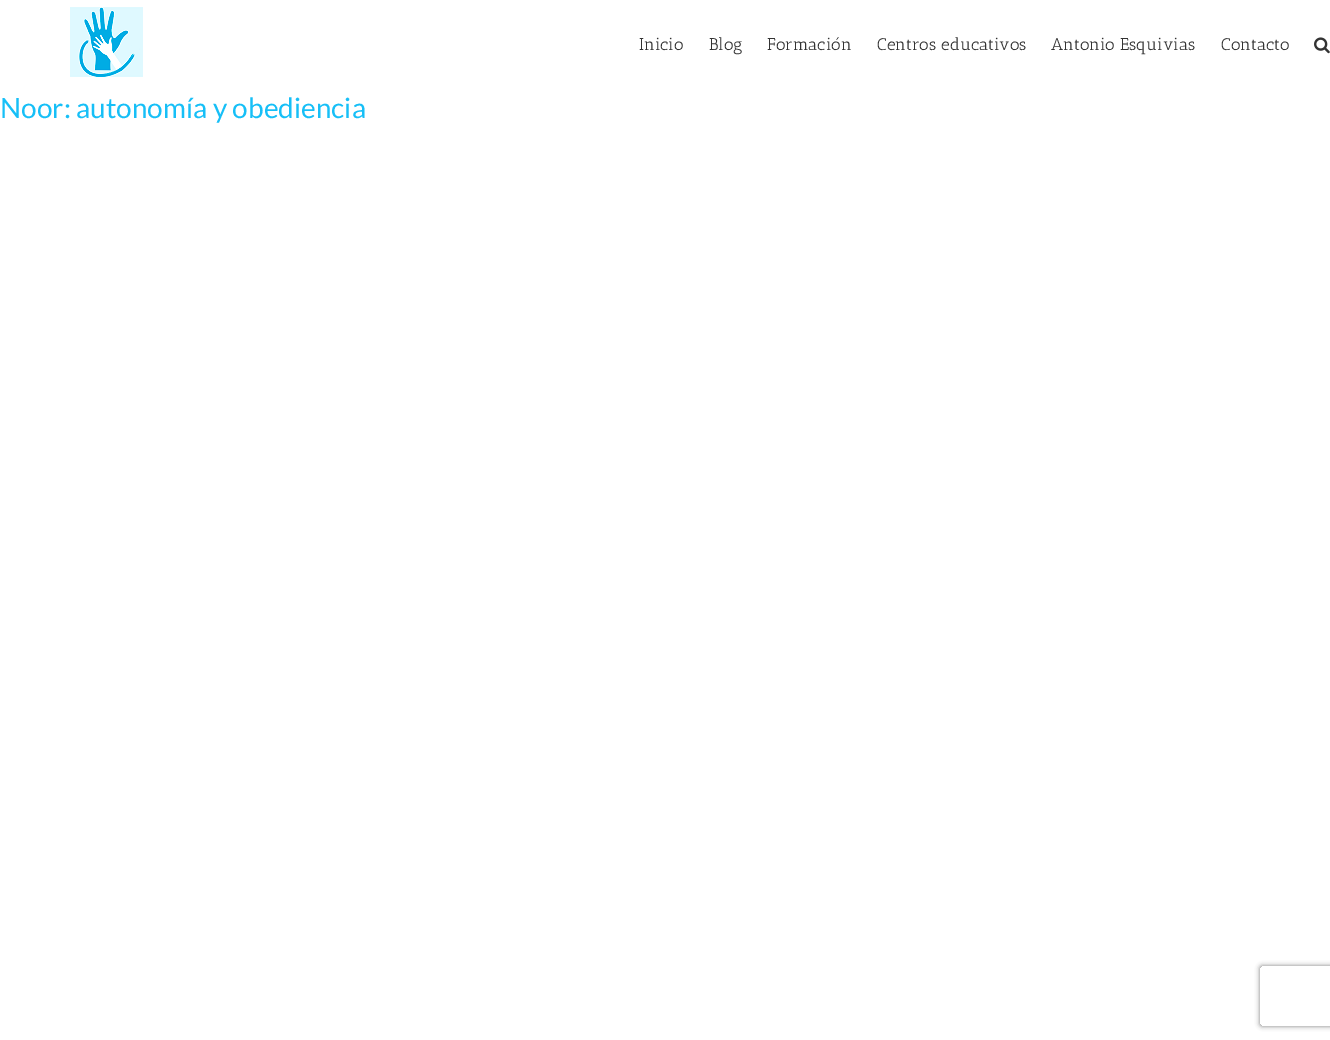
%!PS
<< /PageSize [1330 1040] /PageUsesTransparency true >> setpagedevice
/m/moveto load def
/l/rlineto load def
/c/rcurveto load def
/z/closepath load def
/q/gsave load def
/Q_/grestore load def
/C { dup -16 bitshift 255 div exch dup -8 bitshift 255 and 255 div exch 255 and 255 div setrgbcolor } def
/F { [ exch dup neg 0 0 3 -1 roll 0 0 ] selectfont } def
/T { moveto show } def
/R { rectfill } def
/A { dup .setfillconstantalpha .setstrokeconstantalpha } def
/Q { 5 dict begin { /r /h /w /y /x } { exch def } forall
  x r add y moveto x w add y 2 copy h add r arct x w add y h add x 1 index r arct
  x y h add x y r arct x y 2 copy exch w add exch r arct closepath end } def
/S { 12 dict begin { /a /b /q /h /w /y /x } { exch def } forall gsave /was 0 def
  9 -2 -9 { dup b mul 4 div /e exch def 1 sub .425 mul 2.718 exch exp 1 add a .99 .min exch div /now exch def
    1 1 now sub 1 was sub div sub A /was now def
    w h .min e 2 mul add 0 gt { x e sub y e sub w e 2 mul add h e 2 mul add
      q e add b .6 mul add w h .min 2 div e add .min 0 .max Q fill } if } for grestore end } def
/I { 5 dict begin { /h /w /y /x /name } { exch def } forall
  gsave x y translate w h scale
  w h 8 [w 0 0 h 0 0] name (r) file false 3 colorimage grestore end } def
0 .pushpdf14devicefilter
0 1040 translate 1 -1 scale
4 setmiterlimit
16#FFFFFF C
0 0 1330 1040 R
(1.rgb) 70 7 73 70 I
/AnticSlab-Regular 17 F
16#333333 C
(Inicio) 639 50 T
(Blog) 709 50 T
(Formación) 767 50 T
(Centros educativos) 877 50 T
(Antonio Esquivias) 1051 50 T
(Contacto) 1221 50 T
(2.rgb) 1314 37 16 17 I
/Lato-Regular 28 F
16#16BFF7 C
(Noor: autonomía y obediencia) 0 118 T
q
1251 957 m 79 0 l 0 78 l -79 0 l z 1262 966 m 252 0 l 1 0 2 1 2 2 c 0 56 l 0 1 -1 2 -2 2 c -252 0 l -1 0 -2 -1 -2 -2 c 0 -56 l 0 -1 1 -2 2 -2 c z eoclip newpath
16#808080 C
1260 966 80 60 2 2.5 1 S
Q_
.poppdf14devicefilter showpage
